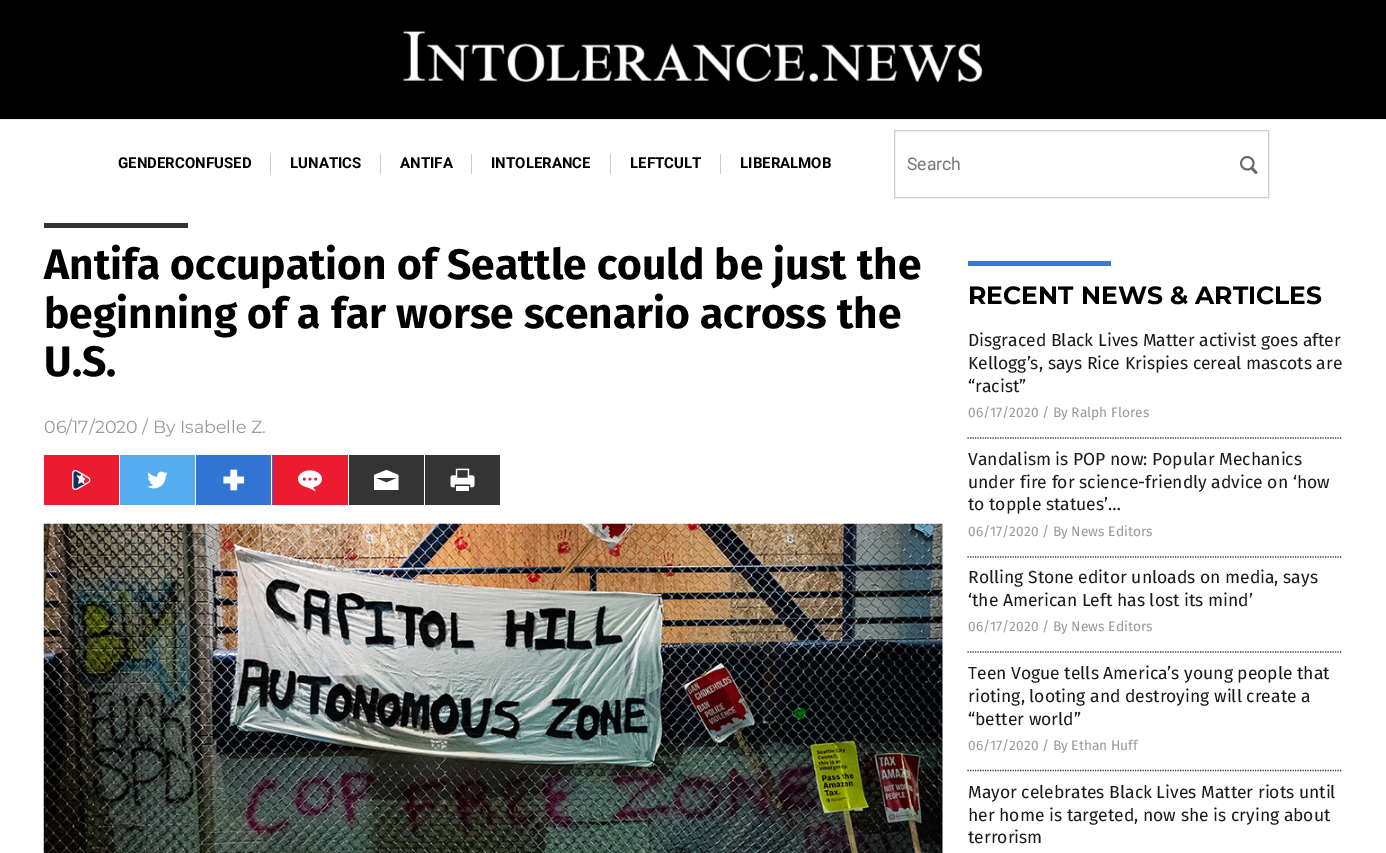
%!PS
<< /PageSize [1386 853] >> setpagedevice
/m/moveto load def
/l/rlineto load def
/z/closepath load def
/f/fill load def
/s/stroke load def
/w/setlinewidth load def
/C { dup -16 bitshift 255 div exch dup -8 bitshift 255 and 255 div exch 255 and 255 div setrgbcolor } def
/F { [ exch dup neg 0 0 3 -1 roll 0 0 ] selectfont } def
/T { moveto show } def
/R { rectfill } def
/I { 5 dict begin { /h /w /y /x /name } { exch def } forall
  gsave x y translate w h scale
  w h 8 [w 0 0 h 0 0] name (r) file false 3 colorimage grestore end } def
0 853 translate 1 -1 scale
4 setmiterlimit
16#000000 C
0 0 1386 853 R
(1.rgb) 402 30 581 52 I
16#FFFFFF C
0 120 1386 733 R
16#ECECEC C
0 119 1386 1 R
16#CCCCCC C
270 154 1 20 R
/Roboto-Bold 15 F
16#000000 C
(GENDERCONFUSED) 118 168 T
16#CCCCCC C
380 154 1 20 R
16#000000 C
(LUNATICS) 290 168 T
16#CCCCCC C
471 154 1 20 R
16#000000 C
(ANTIFA) 400 168 T
16#CCCCCC C
610 154 1 20 R
16#000000 C
(INTOLERANCE) 491 168 T
16#CCCCCC C
720 154 1 20 R
16#000000 C
(LEFTCULT) 630 168 T
(LIBERALMOB) 740 168 T
16#CCCCCC C
894.5 130.5 374 67 rectstroke
/Roboto-Regular 17.5 F
16#757575 C
(Search) 907 170 T
(2.rgb) 1240 156 18 18 I
16#333333 C
44 223 144 5 R
/FiraSans-Bold 42.5 F
16#000000 C
(Antifa occupation of Seattle could be just the) 44 279 T
(beginning of a far worse scenario across the) 44 328 T
(U.S.) 44 376 T
/Montserrat-Regular 17.5 F
16#999999 C
(06/17/2020 / By Isabelle Z.) 44 433 T
16#ED1B2F C
44 455 75 50 R
(3.rgb) 72 470 19 21 I
16#55ACEF C
120 455 75 50 R
(4.rgb) 147 471 21 18 I
16#3274D1 C
196 455 77 50 R
(5.rgb) 223 469 22 22 I
16#FFFFFF C
271 455 1 50 R
16#ED1B2F C
273 455 75 50 R
(6.rgb) 298 470 24 22 I
16#343434 C
349 455 75 50 R
16#FFFFFF C
386.5 470 m -12.5 5 l 0 15 l 24.5 0 l 0 -15 l z 386.5 482.5 m -11 -4.5 l 21.5 0 l z f
16#343434 C
425 455 75 50 R
(7.rgb) 450 468 25 23 I
(8.rgb) 43 523 900 330 I
16#367BCB C
968 261 143 5 R
/Montserrat-Bold 25 F
16#000000 C
(RECENT NEWS & ARTICLES) 968 304 T
16#343434 C
1.2 w
[1.25 1.25] 0 setdash
967.5 438 m 375 0 l s
/FiraSans-Regular 17.5 F
16#1A1A1A C
(Disgraced Black Lives Matter activist goes after) 968 346 T
(Kellogg’s, says Rice Krispies cereal mascots are) 968 369 T
(“racist”) 968 392 T
/FiraSans-Regular 13.75 F
16#999999 C
(06/17/2020 / By Ralph Flores) 968 417 T
16#343434 C
967.5 557 m 375 0 l s
/FiraSans-Regular 17.5 F
16#1A1A1A C
(Vandalism is POP now: Popular Mechanics) 968 465 T
(under fire for science-friendly advice on ‘how) 968 488 T
(to topple statues’…) 968 510 T
/FiraSans-Regular 13.75 F
16#999999 C
(06/17/2020 / By News Editors) 968 536 T
16#343434 C
967.5 652 m 375 0 l s
/FiraSans-Regular 17.5 F
16#1A1A1A C
(Rolling Stone editor unloads on media, says) 968 583 T
(‘the American Left has lost its mind’) 968 606 T
/FiraSans-Regular 13.75 F
16#999999 C
(06/17/2020 / By News Editors) 968 631 T
16#343434 C
967.5 770.5 m 375 0 l s
/FiraSans-Regular 17.5 F
16#1A1A1A C
(Teen Vogue tells America’s young people that) 968 679 T
(rioting, looting and destroying will create a) 968 702 T
(“better world”) 968 725 T
/FiraSans-Regular 13.75 F
16#999999 C
(06/17/2020 / By Ethan Huff) 968 750 T
/FiraSans-Regular 17.5 F
16#1A1A1A C
(Mayor celebrates Black Lives Matter riots until) 968 798 T
(her home is targeted, now she is crying about) 968 821 T
(terrorism) 968 843 T
showpage
